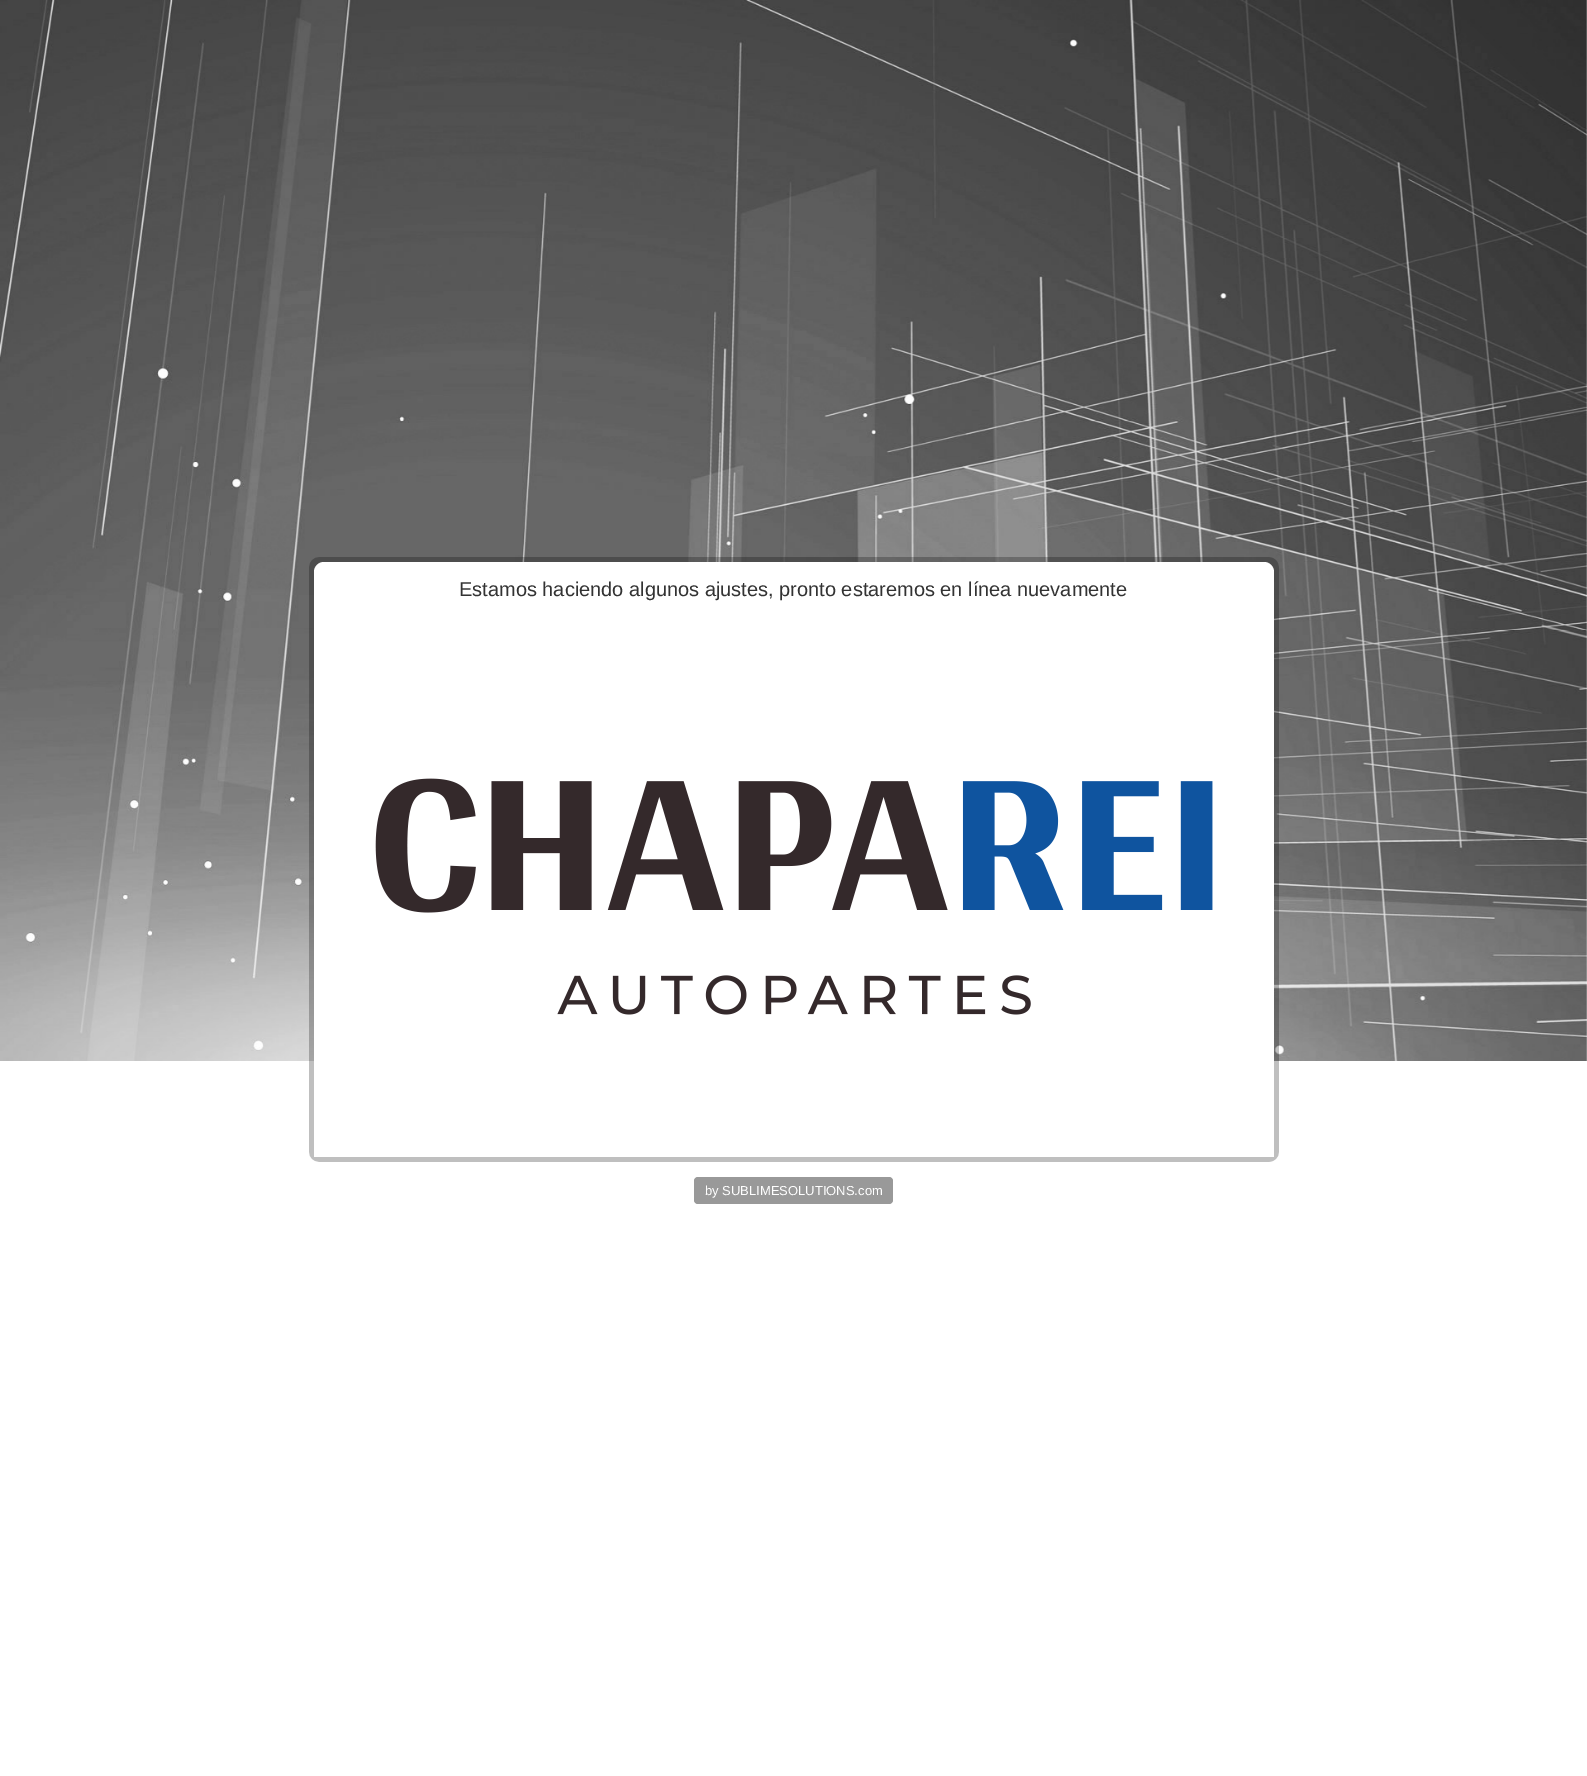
%!PS
<< /PageSize [1587 1776] >> setpagedevice
/f/fill load def
/C { dup -16 bitshift 255 div exch dup -8 bitshift 255 and 255 div exch 255 and 255 div setrgbcolor } def
/F { [ exch dup neg 0 0 3 -1 roll 0 0 ] selectfont } def
/T { moveto show } def
/R { rectfill } def
/Q { 5 dict begin { /r /h /w /y /x } { exch def } forall
  x r add y moveto x w add y 2 copy h add r arct x w add y h add x 1 index r arct
  x y h add x y r arct x y 2 copy exch w add exch r arct closepath end } def
/I { 5 dict begin { /h /w /y /x /name } { exch def } forall
  gsave x y translate w h scale
  w h 8 [w 0 0 h 0 0] name (r) file false 3 colorimage grestore end } def
0 1776 translate 1 -1 scale
4 setmiterlimit
16#FFFFFF C
0 0 1587 1776 R
(1.rgb) 0 0 1587 1061 I
(2.rgb) 309 557 970 605 I
314 562 960 595 10 Q f
/LiberationSans-Regular 20 F
16#333333 C
(Estamos haciendo algunos ajustes, pronto estaremos en línea nuevamente) 459 596 T
(3.rgb) 314 778 960 379 I
16#999999 C
694 1177 199 27 4 Q f
/LiberationSans-Regular 13 F
16#FFFFFF C
(by SUBLIMESOLUTIONS.com) 705 1195 T
showpage
